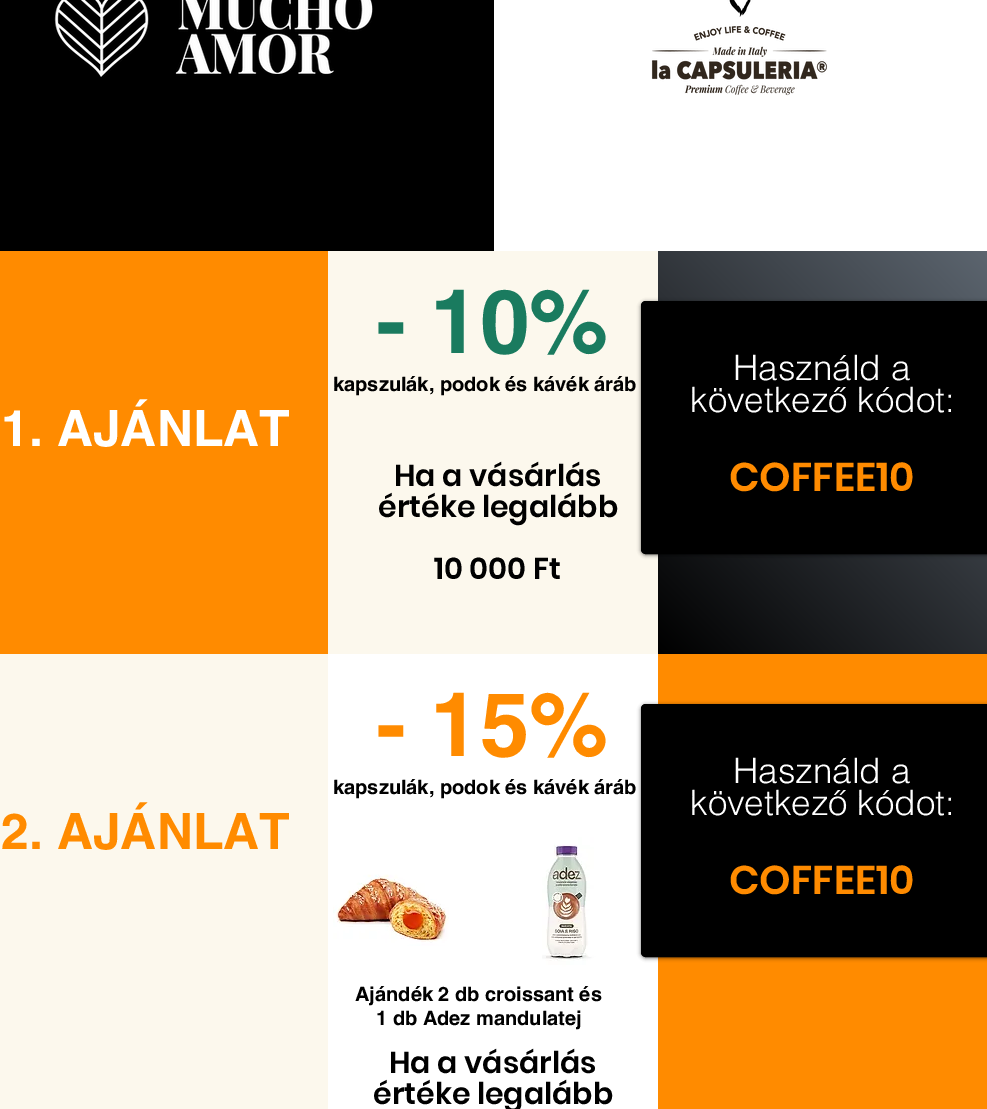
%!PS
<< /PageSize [987 1109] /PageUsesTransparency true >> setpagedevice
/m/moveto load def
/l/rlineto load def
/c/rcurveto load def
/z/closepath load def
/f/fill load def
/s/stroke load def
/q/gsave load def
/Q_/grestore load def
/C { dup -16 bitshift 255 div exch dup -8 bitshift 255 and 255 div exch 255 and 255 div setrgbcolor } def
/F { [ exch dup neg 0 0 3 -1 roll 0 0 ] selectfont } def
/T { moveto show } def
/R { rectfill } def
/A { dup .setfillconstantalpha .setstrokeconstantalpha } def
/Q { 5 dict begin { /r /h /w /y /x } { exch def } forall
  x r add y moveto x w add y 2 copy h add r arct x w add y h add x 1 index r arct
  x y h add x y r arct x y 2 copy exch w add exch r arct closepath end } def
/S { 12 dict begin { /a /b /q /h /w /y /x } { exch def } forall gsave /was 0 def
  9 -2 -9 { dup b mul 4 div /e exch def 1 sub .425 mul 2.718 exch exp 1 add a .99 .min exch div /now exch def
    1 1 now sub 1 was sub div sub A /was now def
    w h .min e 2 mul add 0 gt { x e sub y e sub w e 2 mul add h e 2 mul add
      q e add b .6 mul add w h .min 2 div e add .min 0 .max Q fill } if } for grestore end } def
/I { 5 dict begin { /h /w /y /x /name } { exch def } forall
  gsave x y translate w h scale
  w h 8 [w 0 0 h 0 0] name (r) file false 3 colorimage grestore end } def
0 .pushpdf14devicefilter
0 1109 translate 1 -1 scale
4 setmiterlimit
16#000000 C
0 0 987 1109 R
(1.rgb) 54 0 319 77 I
16#FFFFFF C
494 0 493 251 R
(2.rgb) 651 0 177 96 I
16#FF8B00 C
0 251 328 403 R
/helvetica-Bold 50 F
16#FFFFFF C
(1. AJÁNLAT) 1 446 T
16#FCF8ED C
328 251 330 403 R
/helvetica-Bold 89 F
16#1A7B5F C
(- 10%) 376 353 T
/helvetica-Bold 20 F
16#000000 C
(kapszulák, podok és kávék áráb) 333 391 T
/Poppins-SemiBold 30 F
(Ha a vásárlás) 394 486 T
(értéke legalább) 378 517 T
(10 000 Ft) 434 579 T
q 658 251 m 329 0 l 0 403 l -329 0 l z clip newpath
<< /ShadingType 2 /ColorSpace /DeviceRGB /Coords [640 636 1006 270] /Extend [true true] /Function << /FunctionType 2 /Domain [0 1] /C0 [0 0 0] /C1 [.361 .396 .435] /N 1 >> >> shfill Q_
641 302 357 253 5 2 .6 S
646 301 m 341 0 l 0 253 l -341 0 l -3 0 -5 -2 -5 -5 c 0 -243 l 0 -3 2 -5 5 -5 c z f
641.5 301.5 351 252 4.5 Q s
/helvetica-Light 35 F
16#FFFFFF C
(Használd a) 733 380 T
(következő kódot:) 690 412 T
/Poppins-SemiBold 40 F
16#FF8B00 C
(COFFEE10) 729 491 T
16#FCF8ED C
0 654 328 455 R
/helvetica-Bold 50 F
16#FF8B00 C
(2. AJÁNLAT) 1 849 T
16#FFFFFF C
328 654 330 455 R
/helvetica-Bold 89 F
16#FF8B00 C
(- 15%) 376 756 T
/helvetica-Bold 20 F
16#000000 C
(kapszulák, podok és kávék áráb) 333 794 T
(3.rgb) 333 874 116 72 I
(4.rgb) 542 837 116 130 I
(Ajándék 2 db croissant és) 355 1001 T
(1 db Adez mandulatej) 376 1025 T
/Poppins-SemiBold 30 F
(Ha a vásárlás) 389 1073 T
(értéke legalább) 373 1104 T
16#FF8B00 C
658 654 329 455 R
16#000000 C
641 705 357 253 5 2 .6 S
646 704 m 341 0 l 0 253 l -341 0 l -3 0 -5 -2 -5 -5 c 0 -243 l 0 -3 2 -5 5 -5 c z f
641.5 704.5 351 252 4.5 Q s
/helvetica-Light 35 F
16#FFFFFF C
(Használd a) 733 783 T
(következő kódot:) 690 815 T
/Poppins-SemiBold 40 F
16#FF8B00 C
(COFFEE10) 729 894 T
.poppdf14devicefilter showpage
